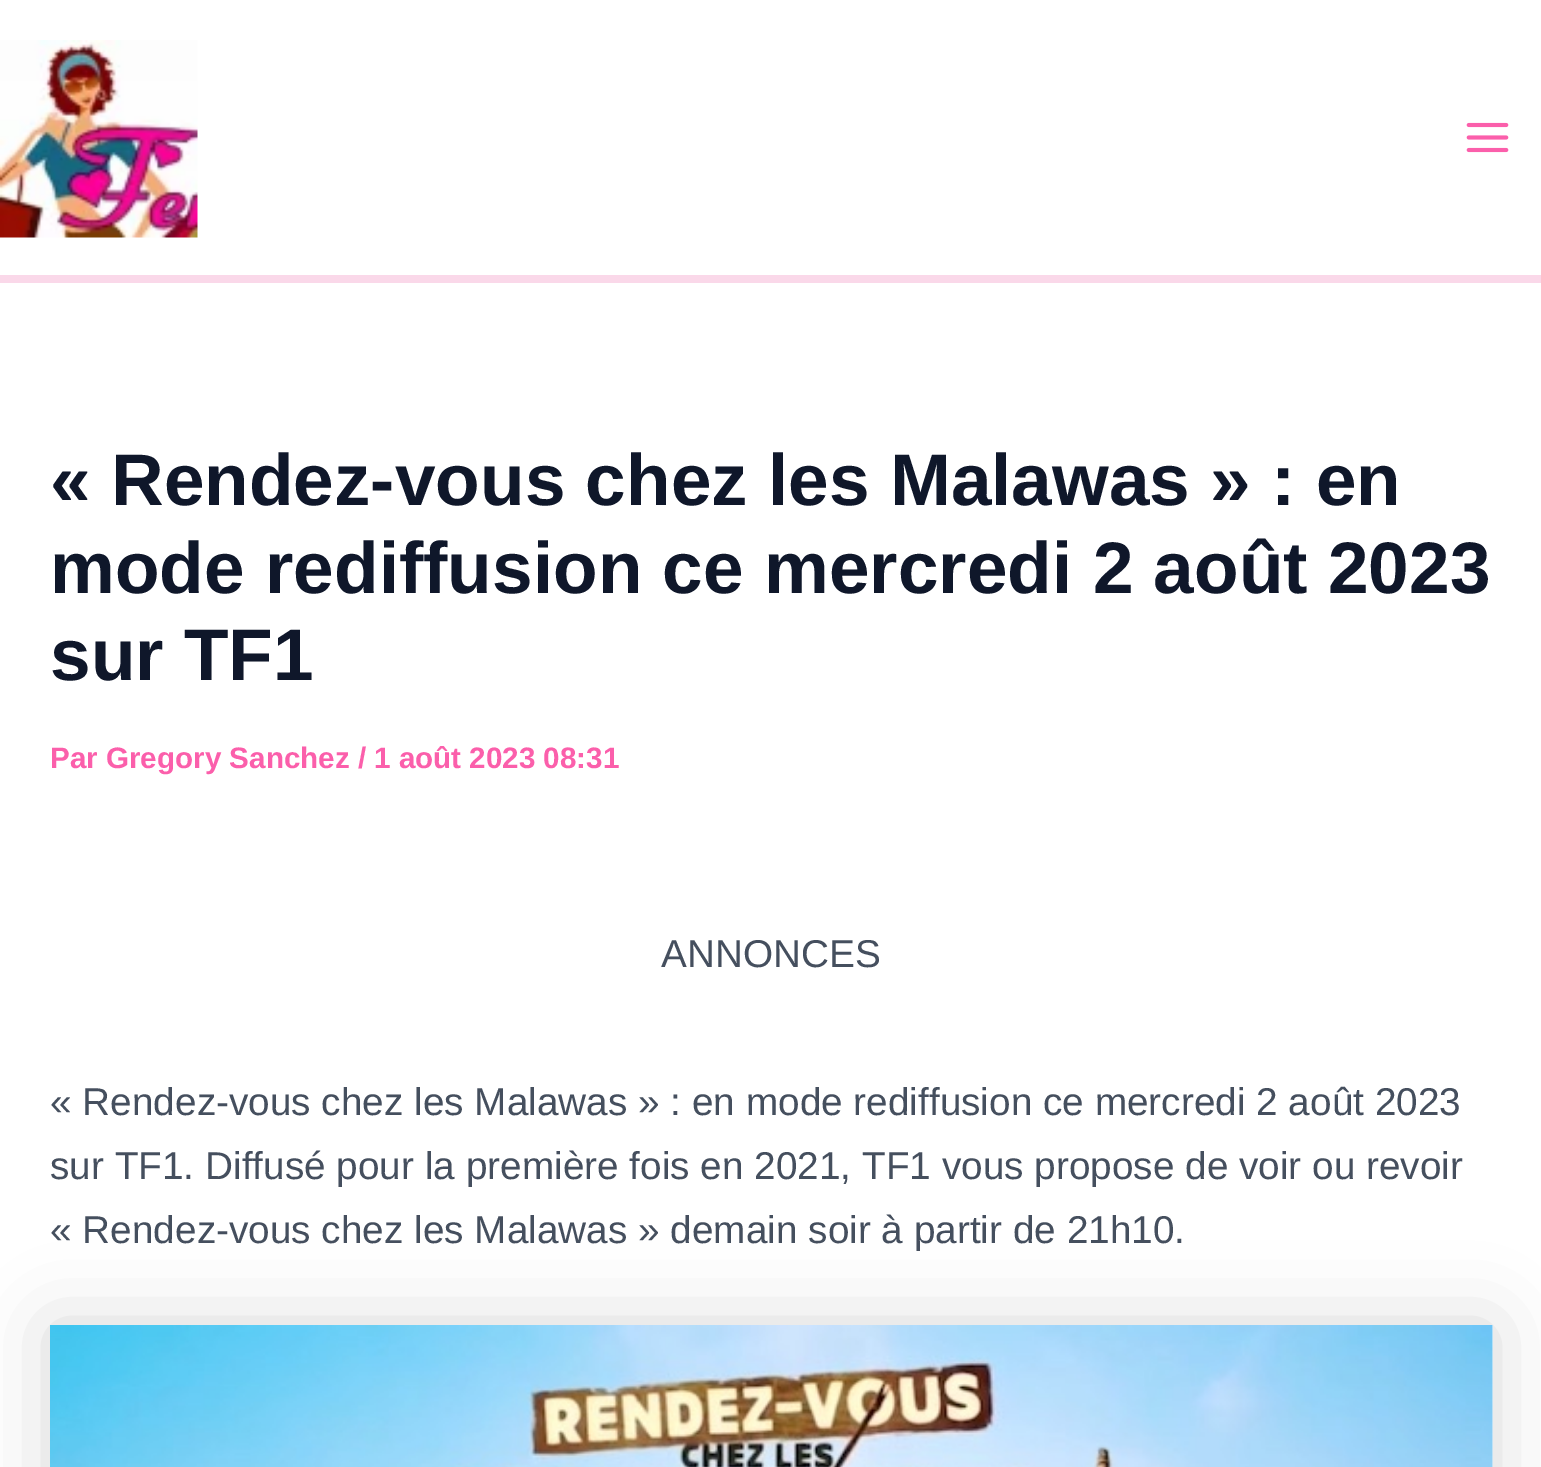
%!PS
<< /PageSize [1541 1467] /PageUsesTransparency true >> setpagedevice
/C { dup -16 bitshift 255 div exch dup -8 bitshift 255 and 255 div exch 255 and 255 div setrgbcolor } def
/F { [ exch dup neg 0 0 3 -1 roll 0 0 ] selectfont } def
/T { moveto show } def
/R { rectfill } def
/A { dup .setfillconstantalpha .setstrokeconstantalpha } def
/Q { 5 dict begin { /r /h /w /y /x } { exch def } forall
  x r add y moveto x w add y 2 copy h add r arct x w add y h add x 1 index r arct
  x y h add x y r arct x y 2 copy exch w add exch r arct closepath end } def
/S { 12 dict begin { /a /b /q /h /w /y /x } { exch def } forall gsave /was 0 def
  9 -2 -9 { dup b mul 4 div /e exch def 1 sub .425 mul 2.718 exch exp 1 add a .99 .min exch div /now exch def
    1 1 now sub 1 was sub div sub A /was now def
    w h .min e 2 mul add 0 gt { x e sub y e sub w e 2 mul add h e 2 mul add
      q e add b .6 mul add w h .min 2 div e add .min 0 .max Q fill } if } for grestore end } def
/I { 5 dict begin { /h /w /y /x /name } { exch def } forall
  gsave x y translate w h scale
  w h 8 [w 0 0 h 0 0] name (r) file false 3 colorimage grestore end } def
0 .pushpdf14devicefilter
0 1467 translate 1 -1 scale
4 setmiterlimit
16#FFFFFF C
0 0 1541 1467 R
16#FAD8E9 C
0 275 1541 8 R
(1.rgb) 0 40 198 198 I
(2.rgb) 1466 122 43 31 I
/LiberationSans-Bold 73 F
16#0F172A C
(« Rendez-vous chez les Malawas » : en) 50 505 T
(mode rediffusion ce mercredi 2 août 2023) 50 593 T
(sur TF1) 50 680 T
/LiberationSans-Bold 29.6 F
16#FB5FAB C
(Par Gregory Sanchez / 1 août 2023 08:31) 50 768 T
/LiberationSans-Regular 38.75 F
16#454F5E C
(ANNONCES) 661 967 T
(« Rendez-vous chez les Malawas » : en mode rediffusion ce mercredi 2 août 2023) 50 1115 T
(sur TF1. Diffusé pour la première fois en 2021, TF1 vous propose de voir ou revoir) 50 1179 T
16#000000 C
50 1325 1443 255 0 37.5 .15 S
16#454F5E C
(« Rendez-vous chez les Malawas » demain soir à partir de 21h10.) 50 1243 T
(3.rgb) 50 1325 1443 142 I
.poppdf14devicefilter showpage
